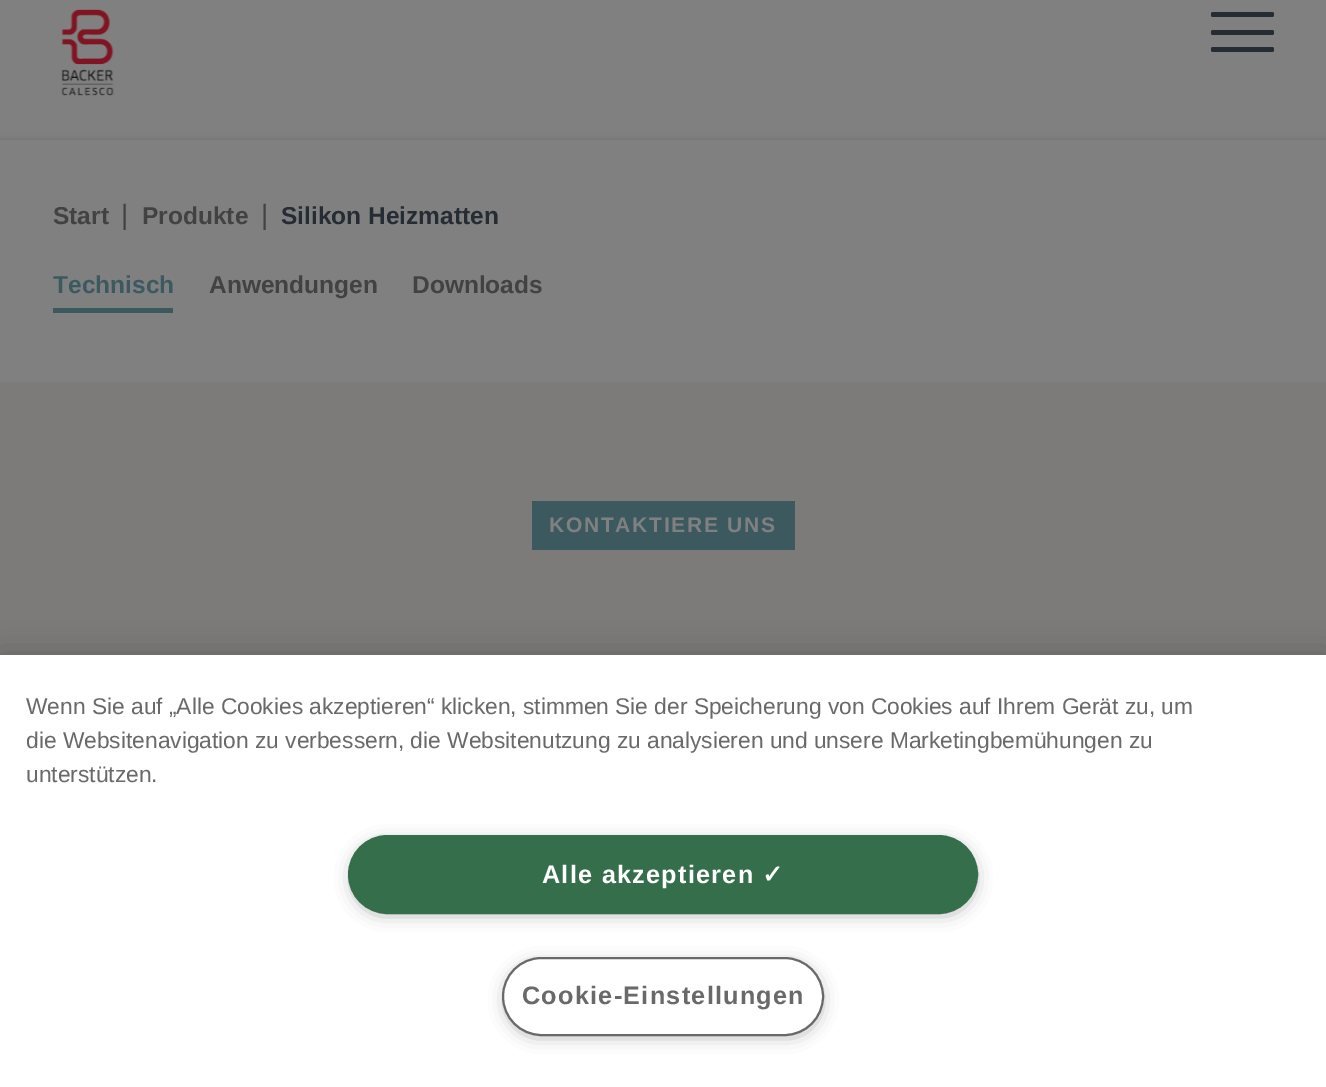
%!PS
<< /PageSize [1326 1087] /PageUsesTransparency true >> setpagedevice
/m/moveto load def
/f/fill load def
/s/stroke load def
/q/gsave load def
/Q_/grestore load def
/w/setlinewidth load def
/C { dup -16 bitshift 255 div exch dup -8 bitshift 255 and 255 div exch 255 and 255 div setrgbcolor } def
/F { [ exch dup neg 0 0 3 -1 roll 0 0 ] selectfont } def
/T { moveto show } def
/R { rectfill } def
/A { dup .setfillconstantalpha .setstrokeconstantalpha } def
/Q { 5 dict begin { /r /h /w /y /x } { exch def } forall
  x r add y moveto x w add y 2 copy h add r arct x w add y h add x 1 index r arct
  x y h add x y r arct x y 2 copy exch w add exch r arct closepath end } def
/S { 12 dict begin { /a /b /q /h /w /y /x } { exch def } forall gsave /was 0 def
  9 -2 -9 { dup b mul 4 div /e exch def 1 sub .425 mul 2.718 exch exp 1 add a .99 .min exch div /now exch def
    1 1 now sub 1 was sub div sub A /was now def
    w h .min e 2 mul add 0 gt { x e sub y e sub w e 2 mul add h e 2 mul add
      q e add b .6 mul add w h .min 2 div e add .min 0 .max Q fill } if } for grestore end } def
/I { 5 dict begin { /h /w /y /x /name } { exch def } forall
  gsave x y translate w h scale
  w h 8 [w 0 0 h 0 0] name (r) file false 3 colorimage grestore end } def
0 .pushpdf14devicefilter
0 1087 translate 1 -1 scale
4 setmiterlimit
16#7C7B7A C
0 0 1326 1087 R
16#808080 C
0 0 1326 140 R
(1.rgb) 61 9 53 87 I
16#252C34 C
1211 30 63 5 2 Q f
1211 12 63 5 2 Q f
1211 47 63 5 2 Q f
16#000000 C
0 142 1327 178 0 4.5 .2 S
16#808080 C
0 140 1326 200 R
/LiberationSans-Bold 24.5 F
16#424242 C
(Start) 53 224 T
/LiberationSans-Regular 28 F
(|) 121 224 T
/LiberationSans-Bold 24.5 F
(Produkte) 142 224 T
/LiberationSans-Regular 28 F
(|) 261 224 T
/LiberationSans-Bold 24.5 F
16#252C34 C
(Silikon Heizmatten) 281 224 T
16#3C5960 C
53 308 120 5 R
(Technisch) 53 293 T
16#424242 C
(Anwendungen) 209 293 T
(Downloads) 412 293 T
16#808080 C
0 340 1326 42 R
16#3C5960 C
532 501 263 49 R
/LiberationSans-Bold 21 F
16#808080 C
549 532 m 1.75 0 (KONTAKTIERE UNS) ashow
16#000000 C
0 655 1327 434 0 16 .2 S
16#FFFFFF C
0 655 1326 432 R
/LiberationSans-Regular 22.75 F
16#696969 C
(Wenn Sie auf „Alle Cookies akzeptieren“ klicken, stimmen Sie der Speicherung von Cookies auf Ihrem Gerät zu, um) 26 714 T
(die Websitenavigation zu verbessern, die Websitenutzung zu analysieren und unsere Marketingbemühungen zu) 26 748 T
(unterstützen.) 26 782 T
16#999999 C
354 844 619 68 34 9 1 S
16#346E4A C
349 836 628 77 38.5 Q q f Q_
2 w
s
/LiberationSans-Bold 25.25 F
16#FFFFFF C
542 883 m 1.25 0 (Alle akzeptieren) ashow
/DejaVuSans-Bold 25.25 F
762 883 m 1.25 0 (✓) ashow
16#999999 C
508 966 311 68 34 9 1 S
16#FFFFFF C
503 958 320 77 38.5 Q q f Q_
16#696969 C
s
/LiberationSans-Bold 25.25 F
522 1004 m 1.25 0 (Cookie-Einstellungen) ashow
.poppdf14devicefilter showpage
